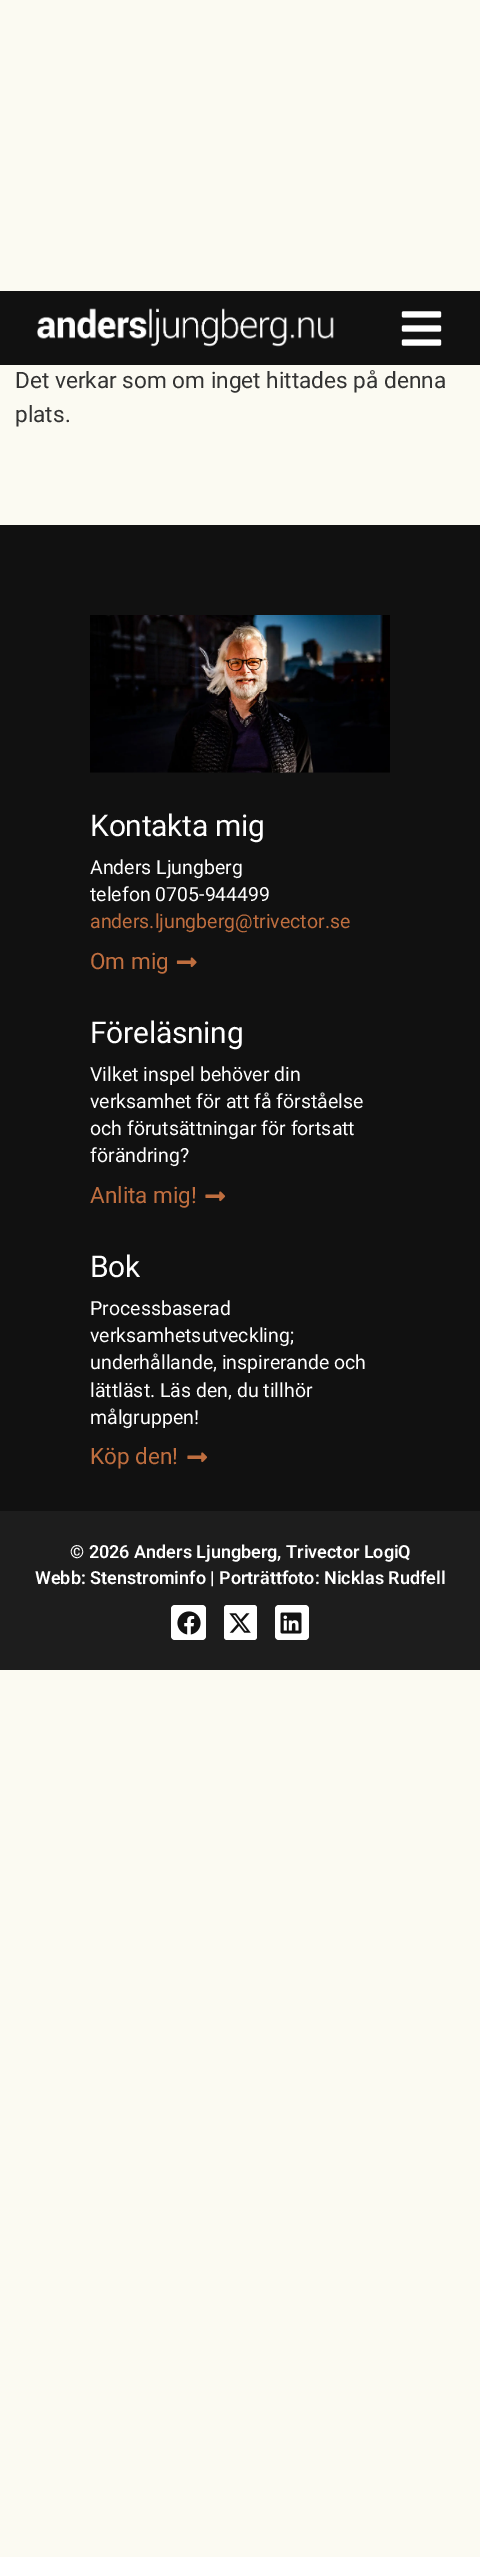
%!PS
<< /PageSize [480 2557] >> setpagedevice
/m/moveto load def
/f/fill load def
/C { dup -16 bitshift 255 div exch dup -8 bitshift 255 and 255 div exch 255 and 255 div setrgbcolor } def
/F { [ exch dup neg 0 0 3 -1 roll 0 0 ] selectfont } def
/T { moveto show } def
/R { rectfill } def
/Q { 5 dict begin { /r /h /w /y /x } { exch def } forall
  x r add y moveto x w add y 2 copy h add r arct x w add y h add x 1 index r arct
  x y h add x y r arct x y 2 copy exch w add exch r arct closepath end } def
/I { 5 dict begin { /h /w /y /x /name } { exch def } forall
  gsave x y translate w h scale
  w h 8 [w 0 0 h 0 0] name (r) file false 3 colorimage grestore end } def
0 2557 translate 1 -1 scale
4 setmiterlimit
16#FBFAF2 C
0 0 480 2557 R
16#111111 C
0 291 480 74 R
(1.rgb) 37 308 297 39 I
(2.rgb) 401 311 41 35 I
/Roboto-Regular 22.6 F
16#333333 C
(Det verkar som om inget hittades på denna) 15 388 T
(plats.) 15 422 T
16#111111 C
0 525 480 986 R
(3.rgb) 90 615 300 158 I
/Roboto-Regular 30 F
16#FFFFFF C
90 836 m -.25 0 (Kontakta mig) ashow
/Roboto-Regular 19.5 F
(Anders Ljungberg) 90 874 T
(telefon 0705-944499) 90 901 T
16#BF6E3F C
(anders.ljungberg@trivector.se) 90 928 T
/Roboto-Regular 22.5 F
(Om mig) 90 969 T
(4.rgb) 176 957 21 11 I
/Roboto-Regular 30 F
16#FFFFFF C
90 1043 m -.25 0 (Föreläsning) ashow
/Roboto-Regular 19.5 F
(Vilket inspel behöver din) 90 1081 T
(verksamhet för att få förståelse) 90 1108 T
(och förutsättningar för fortsatt) 90 1135 T
(förändring?) 90 1162 T
/Roboto-Regular 22.5 F
16#BF6E3F C
(Anlita mig!) 90 1203 T
(5.rgb) 205 1191 21 11 I
/Roboto-Regular 30 F
16#FFFFFF C
90 1277 m -.25 0 (Bok) ashow
/Roboto-Regular 19.5 F
(Processbaserad) 90 1315 T
(verksamhetsutveckling;) 90 1342 T
(underhållande, inspirerande och) 90 1369 T
(lättläst. Läs den, du tillhör) 90 1397 T
(målgruppen!) 90 1424 T
/Roboto-Regular 22.5 F
16#BF6E3F C
(Köp den!) 90 1464 T
(5.rgb) 187 1452 21 11 I
16#1D1D1D C
0 1511 480 159 R
/Roboto-SemiBold 18 F
16#FFFFFF C
(© 2026 Anders Ljungberg, Trivector LogiQ) 70 1558 T
(Webb: Stenstrominfo | Porträttfoto: Nicklas Rudfell) 35 1584 T
171 1605 35 35 4 Q f
(6.rgb) 177 1611 24 24 I
224 1605 33 35 3 Q f
(7.rgb) 229 1613 22 20 I
275 1605 34 35 4 Q f
(8.rgb) 280 1612 22 22 I
showpage
